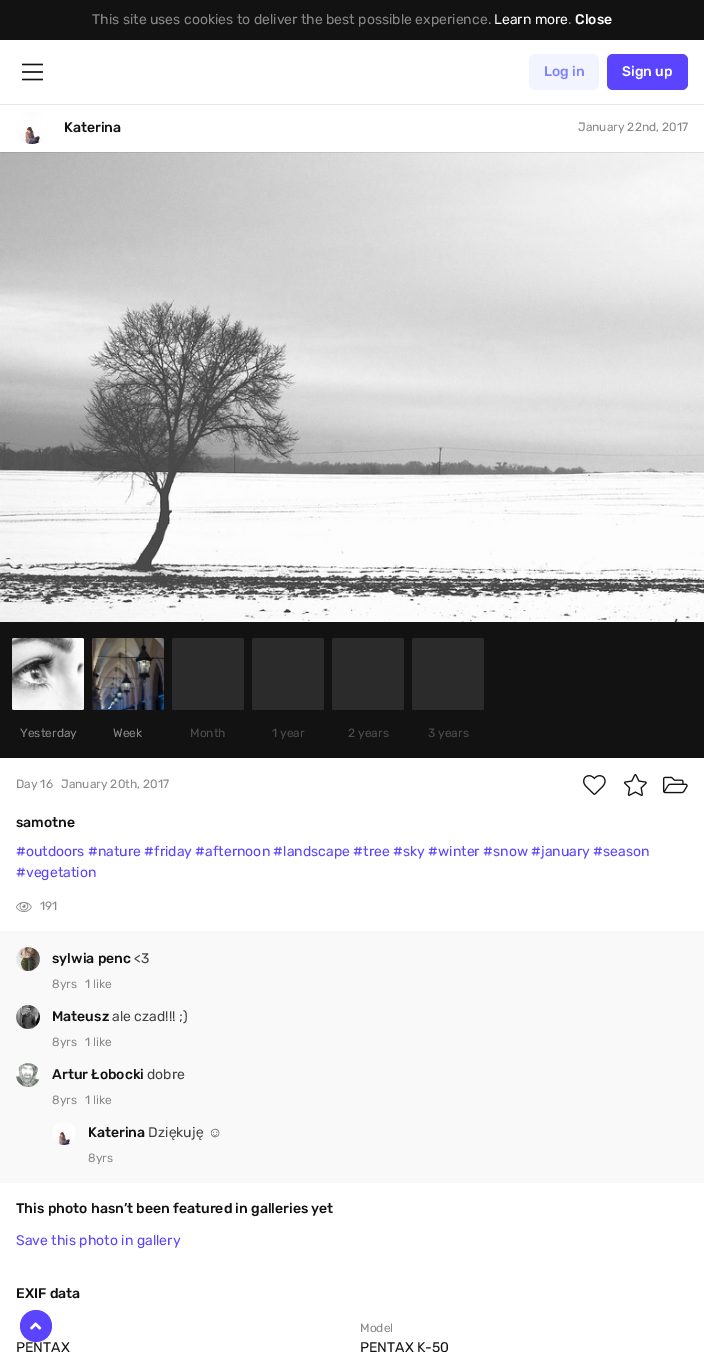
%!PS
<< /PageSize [704 1352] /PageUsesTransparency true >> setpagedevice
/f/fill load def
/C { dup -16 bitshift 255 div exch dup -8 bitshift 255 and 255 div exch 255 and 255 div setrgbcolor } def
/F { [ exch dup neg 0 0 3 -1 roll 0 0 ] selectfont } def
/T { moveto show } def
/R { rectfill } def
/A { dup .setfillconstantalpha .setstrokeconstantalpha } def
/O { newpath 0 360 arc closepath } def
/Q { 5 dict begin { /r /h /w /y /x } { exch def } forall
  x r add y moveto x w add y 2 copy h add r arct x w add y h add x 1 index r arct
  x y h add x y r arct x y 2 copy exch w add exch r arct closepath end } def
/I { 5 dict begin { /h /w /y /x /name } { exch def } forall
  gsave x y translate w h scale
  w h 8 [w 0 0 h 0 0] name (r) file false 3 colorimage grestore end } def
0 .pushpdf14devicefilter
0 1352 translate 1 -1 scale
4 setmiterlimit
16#FFFFFF C
0 0 704 1352 R
16#121212 C
0 0 704 40 R
/Rubik-Regular 14 F
16#888888 C
(This site uses cookies to deliver the best possible experience.) 92 24 T
16#FFFFFF C
(Learn more) 494 24 T
16#888888 C
(.) 568 24 T
/Rubik-Medium 14 F
16#FFFFFF C
(Close) 575 24 T
16#E7E7E7 C
0 104 704 1 R
(1.rgb) 22 63 21 18 I
16#F2F4FF C
529 54 70 36 6 Q f
16#7E84FF C
(Log in) 544 76 T
16#5A44FF C
607 54 81 36 6 Q f
16#FFFFFF C
(Sign up) 622 76 T
(3.rgb) 0 152 704 470 I
0.1 A
16#121212 C
0 152 704 1 R
1 A
16#F5F5F5 C
32 128 16 O f
(2.rgb) 16 112 32 32 I
16#121212 C
(Katerina) 64 132 T
/Rubik-Regular 12 F
16#888888 C
(January 22nd, 2017) 578 131 T
16#121212 C
0 622 704 136 R
(4.rgb) 12 638 72 72 I
16#888888 C
(Yesterday) 20 737 T
(5.rgb) 92 638 72 72 I
(Week) 113 737 T
16#2B2B2B C
172 638 72 72 2 Q f
16#4D4D4D C
(Month) 190 737 T
16#2B2B2B C
252 638 72 72 2 Q f
16#4D4D4D C
(1 year) 272 737 T
16#2B2B2B C
332 638 72 72 2 Q f
16#4D4D4D C
(2 years) 348 737 T
16#2B2B2B C
412 638 72 72 2 Q f
16#4D4D4D C
(3 years) 428 737 T
16#888888 C
(Day 16) 16 788 T
(January 20th, 2017) 61 788 T
(6.rgb) 583 775 23 20 I
(7.rgb) 623 774 24 22 I
(8.rgb) 663 776 25 18 I
/Rubik-Medium 14 F
16#121212 C
(samotne) 16 827 T
/Rubik-Regular 14 F
16#5A44FF C
(#outdoors #nature #friday #afternoon #landscape #tree #sky #winter #snow #january #season) 16 856 T
(#vegetation) 16 877 T
(9.rgb) 16 902 16 10 I
/Rubik-Regular 12 F
16#888888 C
(191) 40 910 T
16#F9F9F9 C
0 931 704 252 R
(10.rgb) 16 947 24 24 I
/Rubik-Medium 14 F
16#121212 C
(sylwia penc) 52 963 T
/Rubik-Regular 14 F
16#444444 C
(<3) 134 963 T
/Rubik-Regular 12 F
16#888888 C
(8yrs) 52 988 T
(1 like) 85 988 T
(11.rgb) 16 1005 24 24 I
/Rubik-Medium 14 F
16#121212 C
(Mateusz) 52 1021 T
/Rubik-Regular 14 F
16#444444 C
(ale czad!!! ;\)) 112 1021 T
/Rubik-Regular 12 F
16#888888 C
(8yrs) 52 1046 T
(1 like) 85 1046 T
(12.rgb) 16 1063 24 24 I
/Rubik-Medium 14 F
16#121212 C
(Artur Łobocki) 52 1079 T
/Rubik-Regular 14 F
16#444444 C
(dobre) 147 1079 T
/Rubik-Regular 12 F
16#888888 C
(8yrs) 52 1104 T
(1 like) 85 1104 T
(13.rgb) 52 1121 24 24 I
/Rubik-Medium 14 F
16#121212 C
(Katerina) 88 1137 T
/Rubik-Regular 14 F
16#444444 C
(Dzi) 148 1137 T
/LiberationSans-Regular 14 F
(ę) 169 1137 T
/Rubik-Regular 14 F
(kuj) 176 1137 T
/LiberationSans-Regular 14 F
(ę ☺) 196 1137 T
/Rubik-Regular 12 F
16#888888 C
(8yrs) 88 1162 T
/Rubik-Medium 14 F
16#121212 C
(This photo hasn’t been featured in galleries yet) 16 1213 T
/Rubik-Regular 14 F
16#5A44FF C
(Save this photo in gallery) 16 1245 T
/Rubik-Medium 14 F
16#121212 C
(EXIF data) 16 1298 T
/Rubik-Regular 14 F
(PENTAX) 16 1352 T
/Rubik-Regular 12 F
16#888888 C
(Model) 360 1332 T
/Rubik-Regular 14 F
16#121212 C
(PENTAX K-50) 360 1352 T
16#5A44FF C
36 1326 16 O f
(14.rgb) 30 1322 12 8 I
.poppdf14devicefilter showpage
